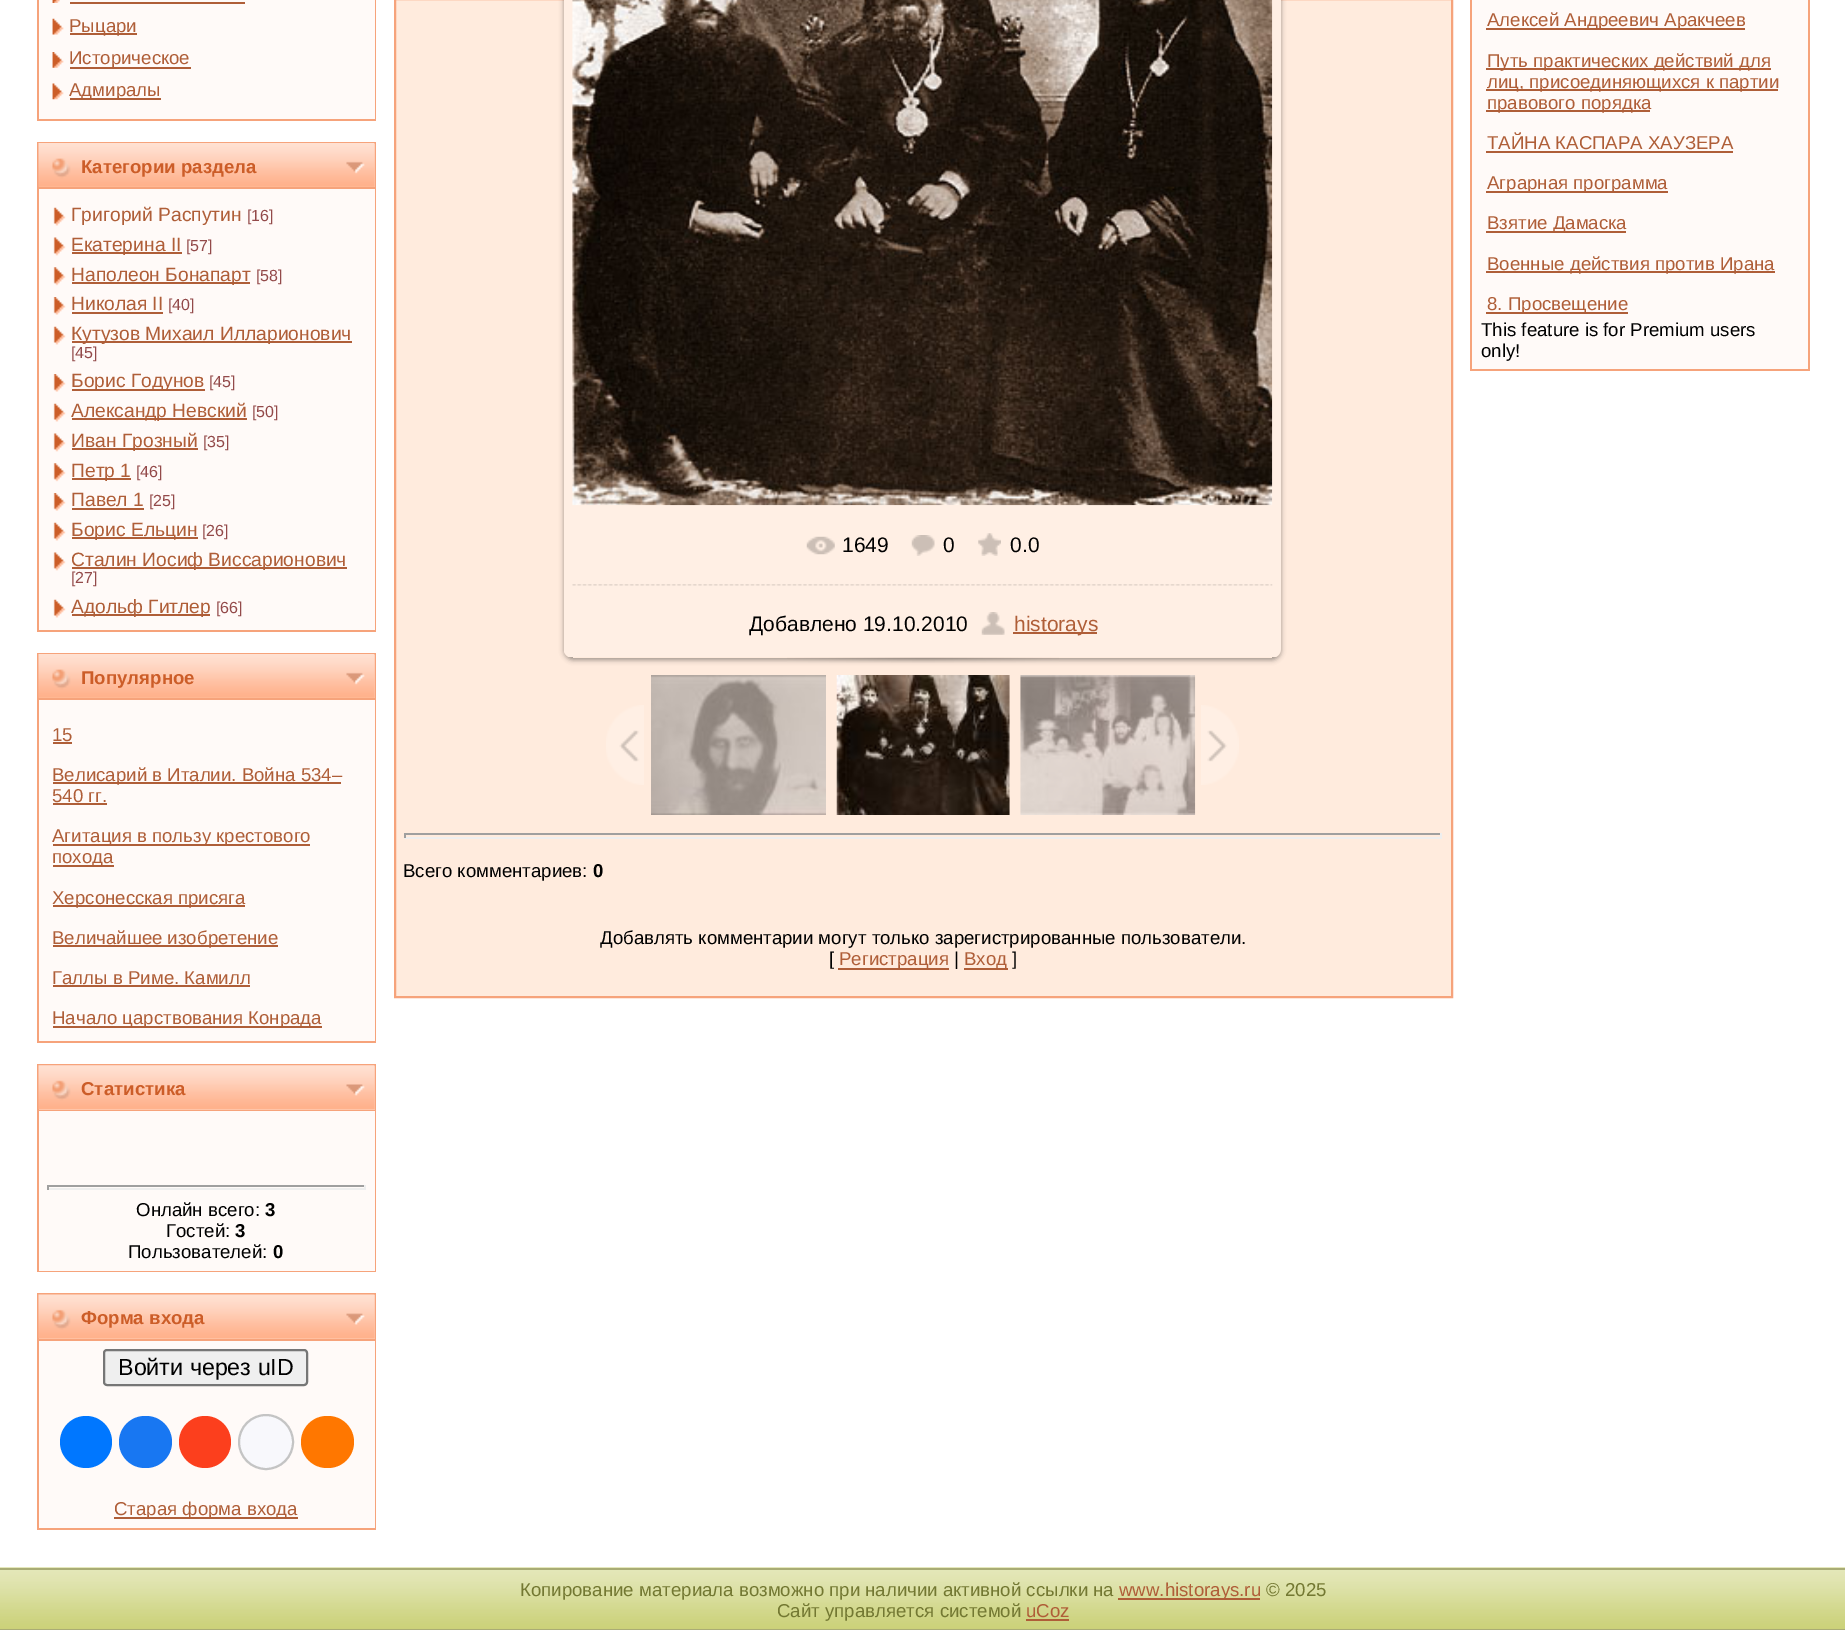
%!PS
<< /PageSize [1845 1630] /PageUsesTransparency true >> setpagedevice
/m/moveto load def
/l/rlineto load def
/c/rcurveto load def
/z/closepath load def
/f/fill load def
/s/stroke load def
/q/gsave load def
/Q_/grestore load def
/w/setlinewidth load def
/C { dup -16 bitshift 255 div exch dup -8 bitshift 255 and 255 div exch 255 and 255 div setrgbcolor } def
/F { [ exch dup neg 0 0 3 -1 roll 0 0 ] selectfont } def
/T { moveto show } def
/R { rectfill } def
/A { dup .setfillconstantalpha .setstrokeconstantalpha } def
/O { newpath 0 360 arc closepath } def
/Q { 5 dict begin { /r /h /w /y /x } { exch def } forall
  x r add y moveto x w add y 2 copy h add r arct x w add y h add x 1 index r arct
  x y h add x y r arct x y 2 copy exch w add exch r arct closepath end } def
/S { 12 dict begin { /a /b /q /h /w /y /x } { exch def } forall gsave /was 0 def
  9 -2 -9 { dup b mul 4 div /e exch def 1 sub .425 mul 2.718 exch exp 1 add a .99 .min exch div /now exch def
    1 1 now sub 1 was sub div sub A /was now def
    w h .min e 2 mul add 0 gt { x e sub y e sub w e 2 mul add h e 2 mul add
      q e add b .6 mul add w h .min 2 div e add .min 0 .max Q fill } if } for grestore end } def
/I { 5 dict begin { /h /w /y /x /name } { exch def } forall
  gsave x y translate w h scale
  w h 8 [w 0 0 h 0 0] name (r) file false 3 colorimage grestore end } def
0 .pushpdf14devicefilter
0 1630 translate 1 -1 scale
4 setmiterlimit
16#FFFFFF C
0 0 1845 1630 R
16#F6A37B C
37 0 339 121 R
16#FFFAF8 C
39 0 336 119 R
(1.rgb) 52 0 8 3 I
16#AF5E38 C
70 2 175 2 R
(2.rgb) 52 18 12 17 I
70 33 67 2 R
/LiberationSans-Regular 18.65 F
(Рыцари) 69 32 T
(3.rgb) 52 52 12 16 I
70 67 121 2 R
(Историческое) 69 64 T
(4.rgb) 52 83 12 17 I
70 98 91 2 R
(Адмиралы) 69 96 T
16#F6A37B C
37 142 339 490 R
16#FFC5A9 C
39 144 336 43 R
(5.rgb) 38 143 337 44 I
/LiberationSans-Bold 18.65 F
16#CC5D28 C
(Категории раздела) 81 173 T
16#FFFAF8 C
39 189 336 441 R
(6.rgb) 53 207 13 19 I
/LiberationSans-Regular 19.25 F
16#AF5E38 C
(Григорий Распутин) 71 221 T
/LiberationSans-Regular 16 F
16#934A4A C
([16]) 247 221 T
(7.rgb) 53 237 13 19 I
16#AF5E38 C
72 252 110 2 R
/LiberationSans-Regular 19.25 F
(Екатерина II) 71 251 T
/LiberationSans-Regular 16 F
16#934A4A C
([57]) 186 251 T
(8.rgb) 53 267 13 19 I
16#AF5E38 C
72 282 178 2 R
/LiberationSans-Regular 19.25 F
(Наполеон Бонапарт) 71 281 T
/LiberationSans-Regular 16 F
16#934A4A C
([58]) 256 281 T
(9.rgb) 53 297 13 18 I
/LiberationSans-Regular 19.25 F
16#AF5E38 C
(Николая II) 71 310 T
72 312 91 2 R
/LiberationSans-Regular 16 F
16#934A4A C
([40]) 168 310 T
(6.rgb) 53 326 13 19 I
16#AF5E38 C
72 341 280 2 R
/LiberationSans-Regular 19.25 F
(Кутузов Михаил Илларионович) 71 340 T
/LiberationSans-Regular 16 F
16#934A4A C
([45]) 71 358 T
(9.rgb) 53 374 13 18 I
16#AF5E38 C
72 389 133 2 R
/LiberationSans-Regular 19.25 F
(Борис Годунов) 71 387 T
/LiberationSans-Regular 16 F
16#934A4A C
([45]) 209 387 T
(6.rgb) 53 403 13 19 I
16#AF5E38 C
72 418 175 2 R
/LiberationSans-Regular 19.25 F
(Александр Невский) 71 417 T
/LiberationSans-Regular 16 F
16#934A4A C
([50]) 252 417 T
(7.rgb) 53 433 13 19 I
16#AF5E38 C
72 448 126 2 R
/LiberationSans-Regular 19.25 F
(Иван Грозный) 71 447 T
/LiberationSans-Regular 16 F
16#934A4A C
([35]) 203 447 T
(8.rgb) 53 463 13 19 I
16#AF5E38 C
72 478 59 2 R
/LiberationSans-Regular 19.25 F
(Петр 1) 71 477 T
/LiberationSans-Regular 16 F
16#934A4A C
([46]) 136 477 T
(9.rgb) 53 493 13 18 I
/LiberationSans-Regular 19.25 F
16#AF5E38 C
(Павел 1) 71 506 T
72 508 72 2 R
/LiberationSans-Regular 16 F
16#934A4A C
([25]) 149 506 T
(6.rgb) 53 522 13 19 I
16#AF5E38 C
72 537 126 2 R
/LiberationSans-Regular 19.25 F
(Борис Ельцин) 71 536 T
/LiberationSans-Regular 16 F
16#934A4A C
([26]) 202 536 T
(7.rgb) 53 552 13 19 I
16#AF5E38 C
72 567 275 2 R
/LiberationSans-Regular 19.25 F
(Сталин Иосиф Виссарионович) 71 566 T
/LiberationSans-Regular 16 F
16#934A4A C
([27]) 71 583 T
(6.rgb) 53 599 13 19 I
16#AF5E38 C
72 614 138 2 R
/LiberationSans-Regular 19.25 F
(Адольф Гитлер) 71 613 T
/LiberationSans-Regular 16 F
16#934A4A C
([66]) 216 613 T
16#F6A37B C
37 653 339 390 R
16#FFC5A9 C
39 655 336 43 R
(5.rgb) 38 654 337 44 I
/LiberationSans-Bold 18.65 F
16#CC5D28 C
(Популярное) 81 684 T
16#FFFAF8 C
39 700 336 341 R
/LiberationSans-Regular 18.65 F
16#AF5E38 C
(15) 52 741 T
53 742 19 2 R
53 782 288 2 R
(Велисарий в Италии. Война 534–) 52 781 T
(540 гг.) 52 802 T
53 803 54 2 R
53 844 257 2 R
(Агитация в пользу крестового) 52 842 T
53 865 61 2 R
(похода) 52 863 T
53 905 192 2 R
(Херсонесская присяга) 52 904 T
53 945 225 2 R
(Величайшее изобретение) 52 944 T
(Галлы в Риме. Камилл) 52 984 T
53 985 197 2 R
53 1026 269 2 R
(Начало царствования Конрада) 52 1024 T
16#F6A37B C
37 1064 339 208 R
16#FFC5A9 C
39 1066 336 44 R
(10.rgb) 38 1065 337 44 I
/LiberationSans-Bold 18.65 F
16#CC5D28 C
(Статистика) 81 1095 T
16#FFFAF8 C
39 1111 336 160 R
16#9F9F9F C
47 1185 319 2 R
16#EEEEEE C
364 1185 2 5 R
47 1188 319 2 R
16#9F9F9F C
47 1185 2 5 R
/LiberationSans-Regular 18.65 F
16#000000 C
(Онлайн всего:) 136 1216 T
/LiberationSans-Bold 18.65 F
(3) 265 1216 T
/LiberationSans-Regular 18.65 F
(Гостей:) 166 1237 T
/LiberationSans-Bold 18.65 F
(3) 235 1237 T
/LiberationSans-Regular 18.65 F
(Пользователей:) 128 1258 T
/LiberationSans-Bold 18.65 F
(0) 273 1258 T
16#F6A37B C
37 1293 339 237 R
16#FFC5A9 C
39 1295 336 44 R
(11.rgb) 38 1294 337 45 I
16#CC5D28 C
(Форма входа) 81 1324 T
16#FFFAF8 C
39 1341 336 187 R
16#EFEFEF C
104 1350 203 35 3 Q q f Q_
16#767676 C
2 w
s
/LiberationSans-Regular 23.25 F
16#000000 C
(Войти через uID) 118 1375 T
16#0077FF C
86 1442 26 O f
16#1877F2 C
119 1416 53 52 26 Q f
16#FC3F1D C
205 1442 26 O f
16#F8F8FC C
266 1442 27 O q f Q_
16#C4C4C4 C
s
16#FF7700 C
301 1416 53 52 26 Q f
16#AF5E38 C
114 1517 184 2 R
/LiberationSans-Regular 18.65 F
(Старая форма входа) 114 1515 T
16#FFEBDD C
395 -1 m 1057 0 l 0 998 l -1057 0 l z q f Q_
16#F6A37B C
s
q
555 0 m 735 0 l 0 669 l -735 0 l z 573 -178 m 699 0 l 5 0 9 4 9 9 c 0 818 l 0 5 -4 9 -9 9 c -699 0 l -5 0 -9 -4 -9 -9 c 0 -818 l 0 -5 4 -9 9 -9 c z eoclip newpath
16#000000 C
564 -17 717 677 9 2.5 .37 S
Q_
(12.rgb) 564 0 717 657 I
(13.rgb) 572 0 701 506 I
(14.rgb) 806 536 29 19 I
/LiberationSans-Regular 21 F
16#000000 C
(1649) 842 552 T
(15.rgb) 911 535 24 21 I
(0) 943 552 T
(16.rgb) 978 533 23 23 I
(0.0) 1010 552 T
(17.rgb) 572 584 701 2 I
(Добавлено 19.10.2010) 749 631 T
(18.rgb) 981 612 24 23 I
16#AF5E38 C
1013 632 84 2 R
(historays) 1014 631 T
(19.rgb) 787 657 272 6 I
(20.rgb) 606 705 38 80 I
(21.rgb) 651 675 175 140 I
(22.rgb) 836 675 174 140 I
(23.rgb) 1020 675 176 140 I
(24.rgb) 1201 705 38 80 I
16#9F9F9F C
404 833 1038 2 R
16#EEEEEE C
1440 833 2 5 R
404 837 1038 2 R
16#9F9F9F C
404 833 2 5 R
/LiberationSans-Regular 18.65 F
16#000000 C
(Всего комментариев:) 403 877 T
/LiberationSans-Bold 18.65 F
(0) 593 877 T
/LiberationSans-Regular 18.65 F
(Добавлять комментарии могут только зарегистрированные пользователи.) 600 944 T
([) 829 965 T
16#AF5E38 C
838 968 111 2 R
(Регистрация) 839 965 T
16#000000 C
(|) 954 965 T
16#AF5E38 C
964 968 44 2 R
(Вход) 964 965 T
16#000000 C
(]) 1012 965 T
16#F6A37B C
1470 0 340 371 R
16#FFFAF8 C
1472 0 336 369 R
16#AF5E38 C
1486 28 259 2 R
(Алексей Андреевич Аракчеев) 1487 26 T
1486 68 285 2 R
(Путь практических действий для) 1487 67 T
1486 89 292 2 R
(лиц, присоединяющихся к партии) 1487 88 T
1486 110 164 2 R
(правового порядка) 1487 109 T
(ТАЙНА КАСПАРА ХАУЗЕРА) 1487 149 T
1486 151 247 2 R
1486 191 182 2 R
(Аграрная программа) 1487 189 T
1486 231 140 2 R
(Взятие Дамаска) 1487 229 T
1486 271 289 2 R
(Военные действия против Ирана) 1487 270 T
1486 312 142 2 R
(8. Просвещение) 1487 310 T
16#000000 C
(This feature is for Premium users) 1481 336 T
(only!) 1481 357 T
(25.rgb) 0 1567 1845 62 I
16#A9AC75 C
0 1568 1845 2 R
0 1629 1845 1 R
16#737832 C
(Копирование материала возможно при наличии активной ссылки на) 520 1596 T
16#AF5E38 C
1118 1598 142 2 R
(www.historays.ru) 1119 1596 T
16#737832 C
(© 2025) 1266 1596 T
(Сайт управляется системой) 777 1617 T
16#AF5E38 C
(uCoz) 1026 1617 T
1026 1619 43 2 R
.poppdf14devicefilter showpage
